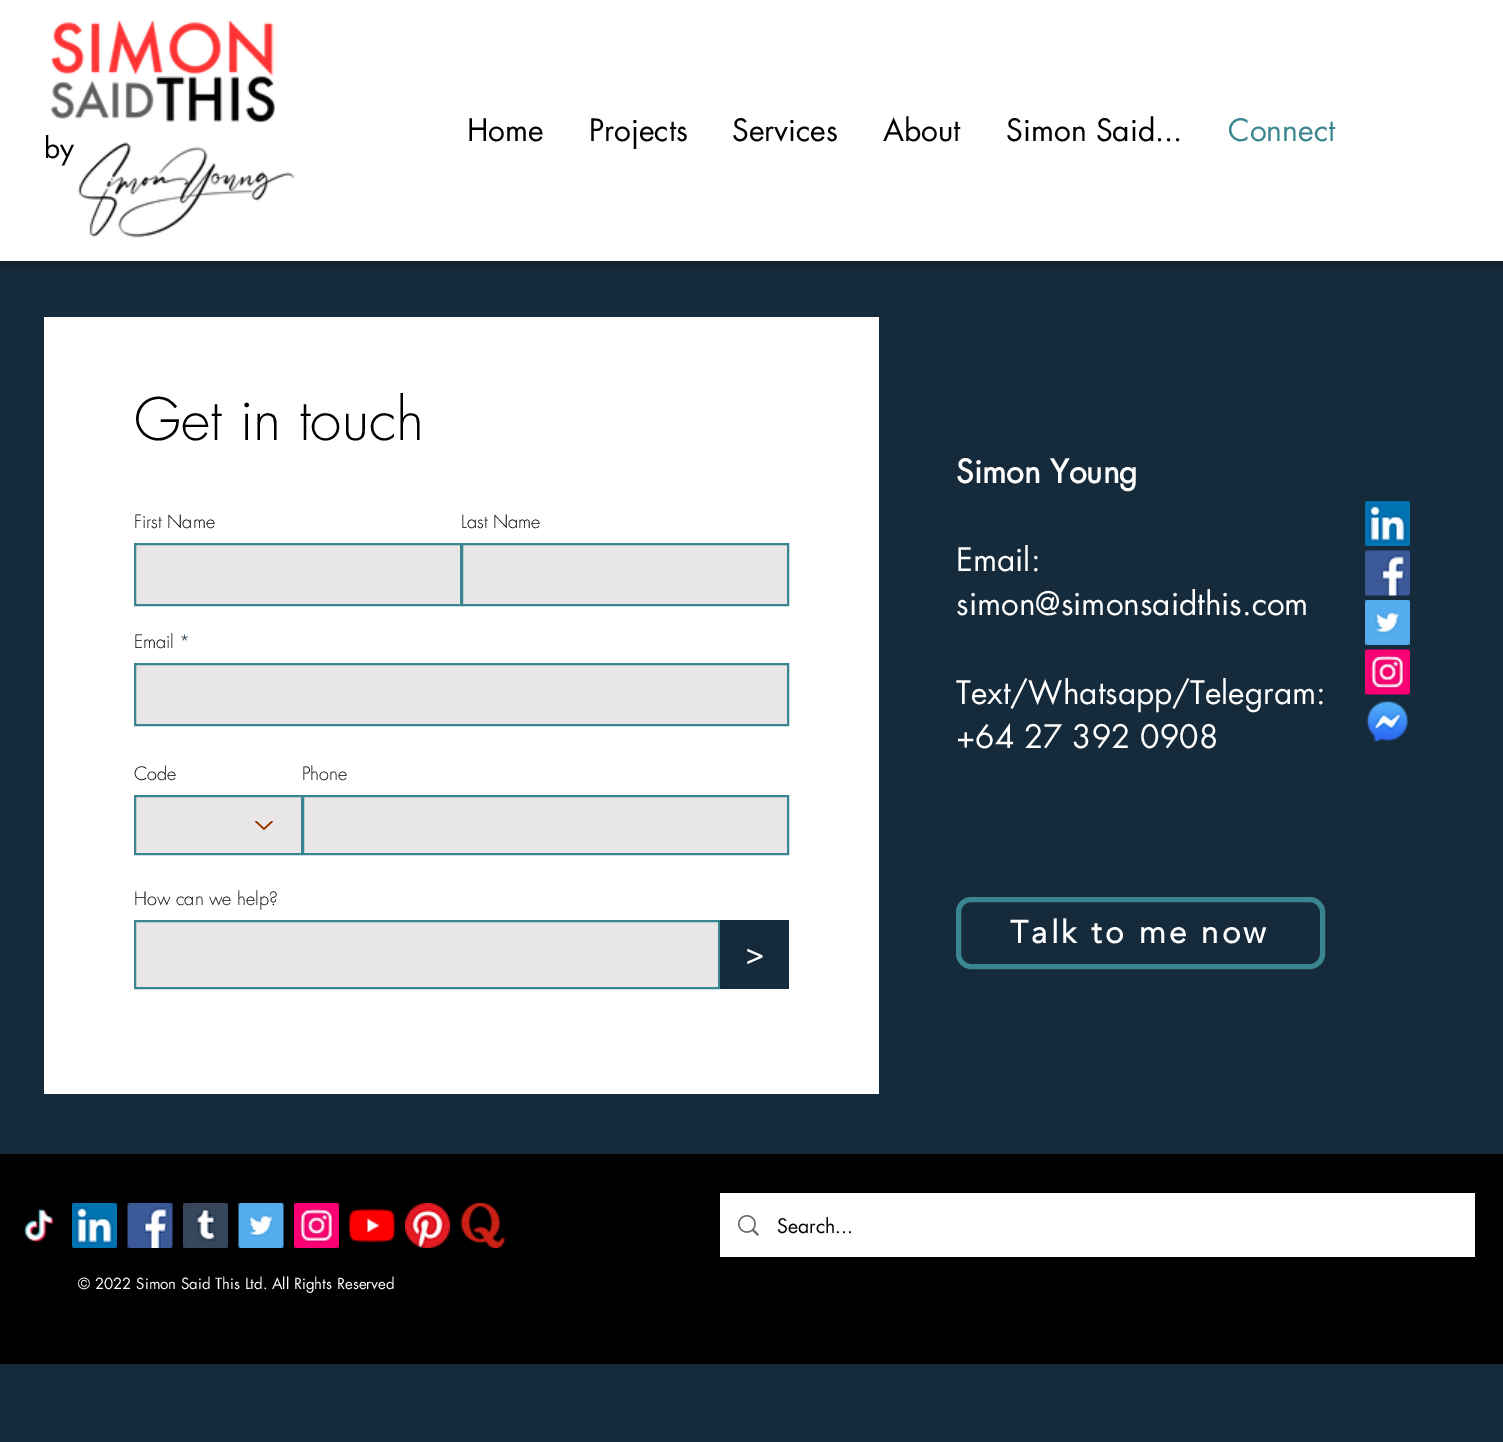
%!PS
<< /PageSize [1503 1442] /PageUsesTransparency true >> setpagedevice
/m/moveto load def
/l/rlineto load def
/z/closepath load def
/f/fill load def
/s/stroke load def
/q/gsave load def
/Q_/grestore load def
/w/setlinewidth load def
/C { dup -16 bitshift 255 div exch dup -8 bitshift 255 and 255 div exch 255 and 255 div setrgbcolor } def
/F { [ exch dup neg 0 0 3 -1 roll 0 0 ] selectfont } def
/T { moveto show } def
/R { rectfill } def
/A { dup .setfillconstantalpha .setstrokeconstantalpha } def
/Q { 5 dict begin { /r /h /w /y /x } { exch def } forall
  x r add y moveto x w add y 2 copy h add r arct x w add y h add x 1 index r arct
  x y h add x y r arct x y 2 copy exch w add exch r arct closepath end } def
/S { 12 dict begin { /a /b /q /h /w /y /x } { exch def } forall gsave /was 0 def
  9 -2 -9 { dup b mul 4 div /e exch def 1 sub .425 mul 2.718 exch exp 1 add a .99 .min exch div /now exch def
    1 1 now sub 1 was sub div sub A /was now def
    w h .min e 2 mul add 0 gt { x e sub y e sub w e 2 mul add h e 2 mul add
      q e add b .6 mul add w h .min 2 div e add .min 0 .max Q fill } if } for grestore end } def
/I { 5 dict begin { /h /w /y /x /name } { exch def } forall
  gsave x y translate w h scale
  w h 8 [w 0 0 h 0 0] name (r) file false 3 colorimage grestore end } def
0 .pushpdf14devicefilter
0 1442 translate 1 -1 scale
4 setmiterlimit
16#152A3B C
0 0 1503 1442 R
16#000000 C
0 0 1503 261 0 4 .7 S
16#FFFFFF C
0 0 1503 261 R
(1.rgb) 50 21 225 102 I
/futura-Regular 28 F
16#000000 C
(by) 44 158 T
/futura-Regular 30 F
(Home) 467 141 T
(Projects) 589 141 T
(Services) 732 141 T
(About) 883 141 T
(Simon Said...) 1006 141 T
16#3A8690 C
(Connect) 1228 141 T
(2.rgb) 78 142 217 96 I
16#FFFFFF C
44 317 835 777 R
/futura-Light 57 F
16#000000 C
(Get in touch) 134 440 T
/futura-Light 18 F
(First Name) 134 528 T
16#E8E6E6 C
135 544 m 326 0 l 0 61 l -326 0 l z q f Q_
16#3A8690 C
2 w
s
16#000000 C
(Last Name) 461 528 T
16#E8E6E6 C
462 544 m 326 0 l 0 61 l -326 0 l z q f Q_
16#3A8690 C
s
16#000000 C
(Email) 134 648 T
16#152A3B C
(*) 179 648 T
16#E8E6E6 C
135 664 m 653 0 l 0 61 l -653 0 l z q f Q_
16#3A8690 C
s
16#000000 C
(Code) 134 780 T
16#E8E6E6 C
135 796 m 167 0 l 0 58 l -167 0 l z q f Q_
16#3A8690 C
s
(3.rgb) 255 821 18 9 I
16#000000 C
(Phone) 302 780 T
16#E8E6E6 C
303 796 m 485 0 l 0 58 l -485 0 l z q f Q_
16#3A8690 C
s
16#000000 C
(How can we help?) 134 905 T
16#E8E6E6 C
135 921 m 584 0 l 0 67 l -584 0 l z q f Q_
16#3A8690 C
s
16#152A3B C
720 920 69 69 R
/Alef-Regular 38 F
16#FFFFFF C
(>) 746 966 T
/futura-Bold 31.5 F
(Simon Young) 956 483 T
/futura-Regular 31.5 F
(Email:) 956 571 T
(simon@simonsaidthis.com) 956 615 T
(Text/Whatsapp/Telegram:) 956 704 T
(+64 27 392 0908) 956 748 T
(4.rgb) 1365 501 45 45 I
(5.rgb) 1365 550 45 46 I
(6.rgb) 1365 600 45 45 I
(7.rgb) 1365 649 45 46 I
(8.rgb) 1366 700 43 43 I
16#3A8690 C
5 w
958.5 899.5 364 67 12.5 Q s
/Avenir-Bold 31.5 F
16#FFFFFF C
1010 943 m 3.1 0 (Talk to me now) ashow
16#000000 C
0 1154 1503 210 R
(9.rgb) 23 1208 32 35 I
(10.rgb) 72 1203 45 45 I
(11.rgb) 127 1203 46 45 I
(12.rgb) 183 1203 45 45 I
(13.rgb) 238 1203 46 45 I
(14.rgb) 294 1203 45 45 I
(15.rgb) 349 1208 46 35 I
(16.rgb) 405 1203 45 45 I
(17.rgb) 460 1203 46 45 I
16#FFFFFF C
720 1193 755 64 R
(18.rgb) 738 1215 21 21 I
/futura-Regular 19.5 F
16#000000 C
(Search...) 777 1233 T
/futura-Regular 15 F
16#FFFFFF C
(© 2022 Simon Said This Ltd. All Rights Reserved) 78 1289 T
.poppdf14devicefilter showpage
